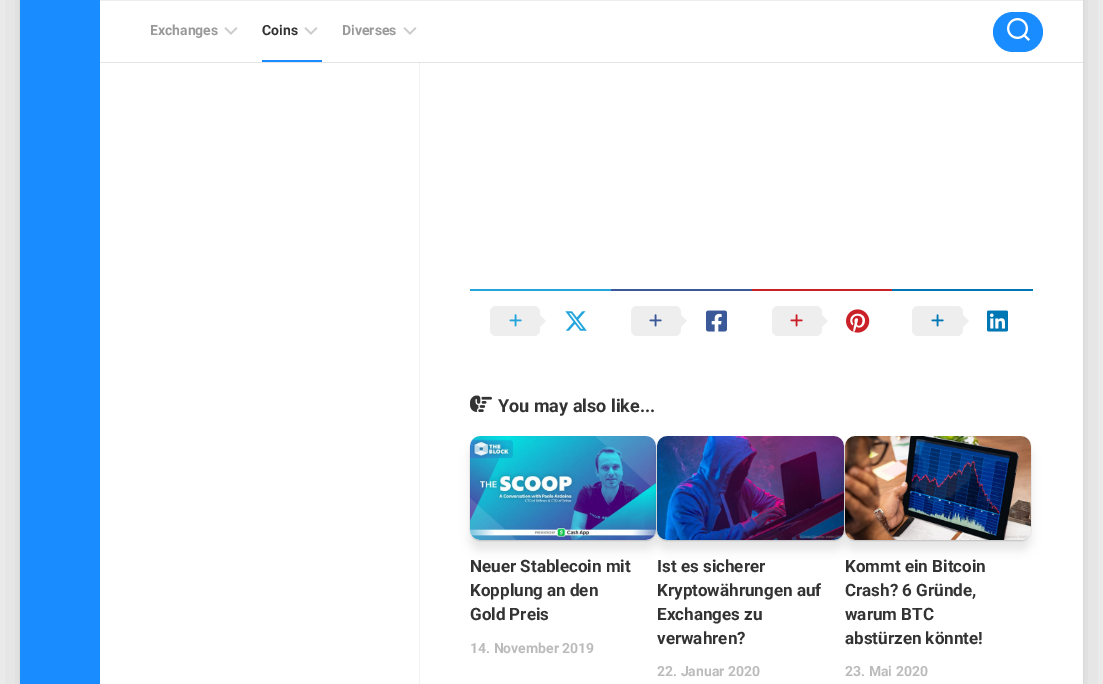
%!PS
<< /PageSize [1103 684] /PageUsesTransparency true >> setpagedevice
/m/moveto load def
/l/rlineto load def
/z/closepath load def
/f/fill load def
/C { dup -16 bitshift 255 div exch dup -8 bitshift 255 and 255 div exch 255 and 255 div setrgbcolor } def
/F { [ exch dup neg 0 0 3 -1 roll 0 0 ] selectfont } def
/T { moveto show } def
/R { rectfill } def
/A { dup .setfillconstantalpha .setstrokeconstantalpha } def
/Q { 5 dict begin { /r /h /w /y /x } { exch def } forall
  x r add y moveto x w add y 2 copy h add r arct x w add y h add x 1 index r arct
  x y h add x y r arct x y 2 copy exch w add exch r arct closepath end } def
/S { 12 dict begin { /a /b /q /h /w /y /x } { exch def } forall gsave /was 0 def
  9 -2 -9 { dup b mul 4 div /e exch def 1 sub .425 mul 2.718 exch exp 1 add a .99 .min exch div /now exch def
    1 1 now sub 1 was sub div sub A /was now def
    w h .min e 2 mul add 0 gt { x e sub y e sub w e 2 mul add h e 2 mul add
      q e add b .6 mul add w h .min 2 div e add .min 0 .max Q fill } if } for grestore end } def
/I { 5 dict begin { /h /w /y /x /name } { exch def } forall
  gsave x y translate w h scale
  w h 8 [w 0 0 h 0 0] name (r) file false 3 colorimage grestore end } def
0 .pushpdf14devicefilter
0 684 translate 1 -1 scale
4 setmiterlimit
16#EEEEEE C
0 0 1103 684 R
16#000000 C
20 -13 1063 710 10 1 .1 S
20 -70 1063 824 10 20 .1 S
16#FFFFFF C
100 1 983 683 R
16#198CFF C
20 0 80 684 R
16#F2F2F2 C
419 62 1 622 R
0.1 A
16#000000 C
100 62 983 1 R
1 A
16#EEEEEE C
100 0 983 1 R
/Roboto-Bold 14 F
16#999999 C
(Exchanges) 150 35 T
(1.rgb) 224 27 14 8 I
16#198CFF C
262 60 60 2 R
16#333333 C
(Coins) 262 35 T
(1.rgb) 304 27 14 8 I
16#999999 C
(Diverses) 342 35 T
(1.rgb) 403 27 14 8 I
16#198CFF C
993 12 50 40 20 Q f
(2.rgb) 1007 18 23 23 I
16#24A5DB C
470 289 141 2 R
16#EEEEEE C
490 306 50 30 6 Q f
(3.rgb) 509 314 13 13 I
540 327 m 0 -12 l 6 6 l z f
(4.rgb) 565 311 22 20 I
16#3B5998 C
611 289 141 2 R
16#EEEEEE C
631 306 50 30 6 Q f
(5.rgb) 649 314 13 13 I
681 327 m 0 -12 l 6 6 l z f
(6.rgb) 706 310 21 22 I
16#CA2128 C
752 289 140 2 R
16#EEEEEE C
772 306 50 30 6 Q f
(7.rgb) 790 314 13 13 I
822 327 m 0 -12 l 6 6 l z f
(8.rgb) 846 309 24 24 I
16#0077B5 C
892 289 141 2 R
16#EEEEEE C
912 306 51 30 6 Q f
(9.rgb) 931 314 13 13 I
963 327 m 0 -12 l 6 6 l z f
(10.rgb) 987 310 21 22 I
(11.rgb) 470 395 22 17 I
/Roboto-Bold 18 F
16#333333 C
(You may also like...) 498 412 T
16#000000 C
470 437 186 104 10 .5 .15 S
470 446 186 104 10 5 .1 S
(12.rgb) 470 436 186 104 I
/Roboto-Bold 17 F
16#333333 C
(Neuer Stablecoin mit) 470 572 T
(Kopplung an den) 470 596 T
(Gold Preis) 470 620 T
/Roboto-Bold 14 F
16#BBBBBB C
(14. November 2019) 470 653 T
16#000000 C
657 437 187 104 10 .5 .15 S
657 446 187 104 10 5 .1 S
(13.rgb) 657 436 187 104 I
/Roboto-Bold 17 F
16#333333 C
(Ist es sicherer) 657 572 T
(Kryptowährungen auf) 657 596 T
(Exchanges zu) 657 620 T
(verwahren?) 657 644 T
/Roboto-Bold 14 F
16#BBBBBB C
(22. Januar 2020) 657 676 T
16#000000 C
845 437 186 104 10 .5 .15 S
845 446 186 104 10 5 .1 S
(14.rgb) 845 436 186 104 I
/Roboto-Bold 17 F
16#333333 C
(Kommt ein Bitcoin) 845 572 T
(Crash? 6 Gründe,) 845 596 T
(warum BTC) 845 620 T
(abstürzen könnte!) 845 644 T
/Roboto-Bold 14 F
16#BBBBBB C
(23. Mai 2020) 845 676 T
.poppdf14devicefilter showpage
